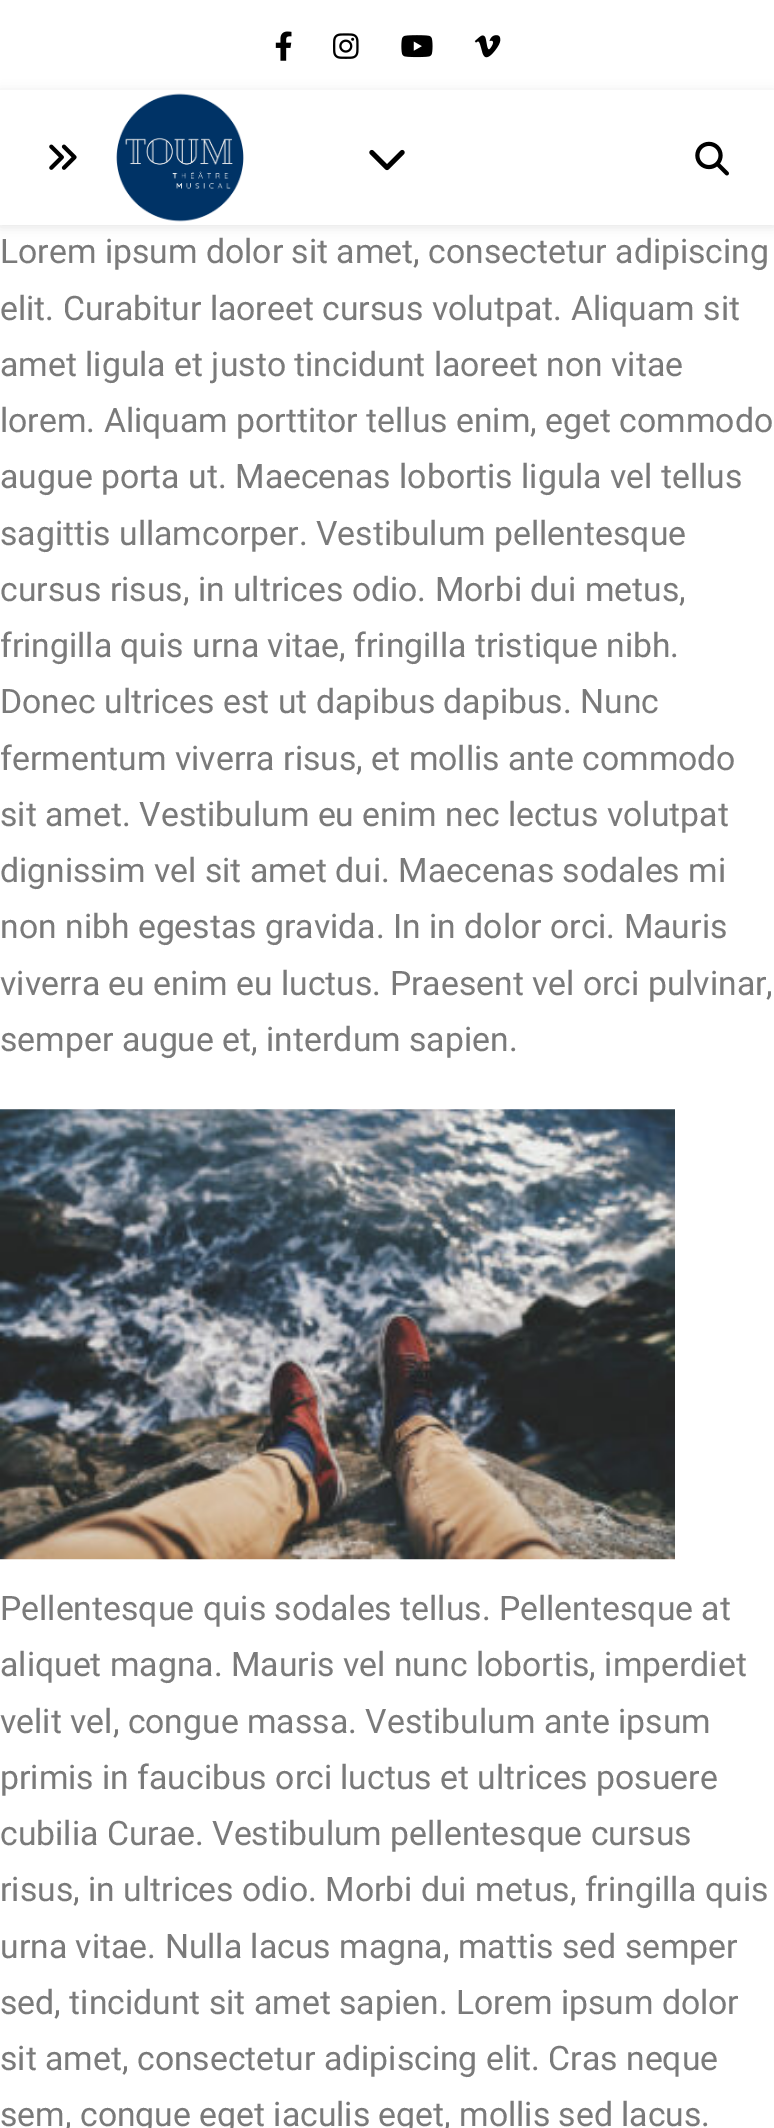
%!PS
<< /PageSize [774 2128] /PageUsesTransparency true >> setpagedevice
/C { dup -16 bitshift 255 div exch dup -8 bitshift 255 and 255 div exch 255 and 255 div setrgbcolor } def
/F { [ exch dup neg 0 0 3 -1 roll 0 0 ] selectfont } def
/T { moveto show } def
/R { rectfill } def
/A { dup .setfillconstantalpha .setstrokeconstantalpha } def
/Q { 5 dict begin { /r /h /w /y /x } { exch def } forall
  x r add y moveto x w add y 2 copy h add r arct x w add y h add x 1 index r arct
  x y h add x y r arct x y 2 copy exch w add exch r arct closepath end } def
/S { 12 dict begin { /a /b /q /h /w /y /x } { exch def } forall gsave /was 0 def
  9 -2 -9 { dup b mul 4 div /e exch def 1 sub .425 mul 2.718 exch exp 1 add a .99 .min exch div /now exch def
    1 1 now sub 1 was sub div sub A /was now def
    w h .min e 2 mul add 0 gt { x e sub y e sub w e 2 mul add h e 2 mul add
      q e add b .6 mul add w h .min 2 div e add .min 0 .max Q fill } if } for grestore end } def
/I { 5 dict begin { /h /w /y /x /name } { exch def } forall
  gsave x y translate w h scale
  w h 8 [w 0 0 h 0 0] name (r) file false 3 colorimage grestore end } def
0 .pushpdf14devicefilter
0 2128 translate 1 -1 scale
4 setmiterlimit
16#FFFFFF C
0 0 774 2128 R
(1.rgb) 275 31 17 30 I
(2.rgb) 333 33 26 26 I
(3.rgb) 401 35 32 23 I
(4.rgb) 474 35 27 23 I
16#000000 C
0 92 774 135 0 5.5 .1 S
16#FFFFFF C
0 90 774 135 R
(5.rgb) 49 144 28 26 I
(6.rgb) 116 93 128 129 I
(7.rgb) 369 149 36 22 I
(8.rgb) 695 141 34 35 I
/Roboto-Regular 33.75 F
16#7A7A7A C
(Lorem ipsum dolor sit amet, consectetur adipiscing) 0 263 T
(elit. Curabitur laoreet cursus volutpat. Aliquam sit) 0 320 T
(amet ligula et justo tincidunt laoreet non vitae) 0 376 T
(lorem. Aliquam porttitor tellus enim, eget commodo) 0 432 T
(augue porta ut. Maecenas lobortis ligula vel tellus) 0 488 T
(sagittis ullamcorper. Vestibulum pellentesque) 0 545 T
(cursus risus, in ultrices odio. Morbi dui metus,) 0 601 T
(fringilla quis urna vitae, fringilla tristique nibh.) 0 657 T
(Donec ultrices est ut dapibus dapibus. Nunc) 0 713 T
(fermentum viverra risus, et mollis ante commodo) 0 770 T
(sit amet. Vestibulum eu enim nec lectus volutpat) 0 826 T
(dignissim vel sit amet dui. Maecenas sodales mi) 0 882 T
(non nibh egestas gravida. In in dolor orci. Mauris) 0 938 T
(viverra eu enim eu luctus. Praesent vel orci pulvinar,) 0 995 T
(semper augue et, interdum sapien.) 0 1051 T
(9.rgb) 0 1109 675 451 I
(Pellentesque quis sodales tellus. Pellentesque at) 0 1620 T
(aliquet magna. Mauris vel nunc lobortis, imperdiet) 0 1676 T
(velit vel, congue massa. Vestibulum ante ipsum) 0 1733 T
(primis in faucibus orci luctus et ultrices posuere) 0 1789 T
(cubilia Curae. Vestibulum pellentesque cursus) 0 1845 T
(risus, in ultrices odio. Morbi dui metus, fringilla quis) 0 1901 T
(urna vitae. Nulla lacus magna, mattis sed semper) 0 1958 T
(sed, tincidunt sit amet sapien. Lorem ipsum dolor) 0 2014 T
(sit amet, consectetur adipiscing elit. Cras neque) 0 2070 T
(sem, congue eget iaculis eget, mollis sed lacus.) 0 2126 T
.poppdf14devicefilter showpage
